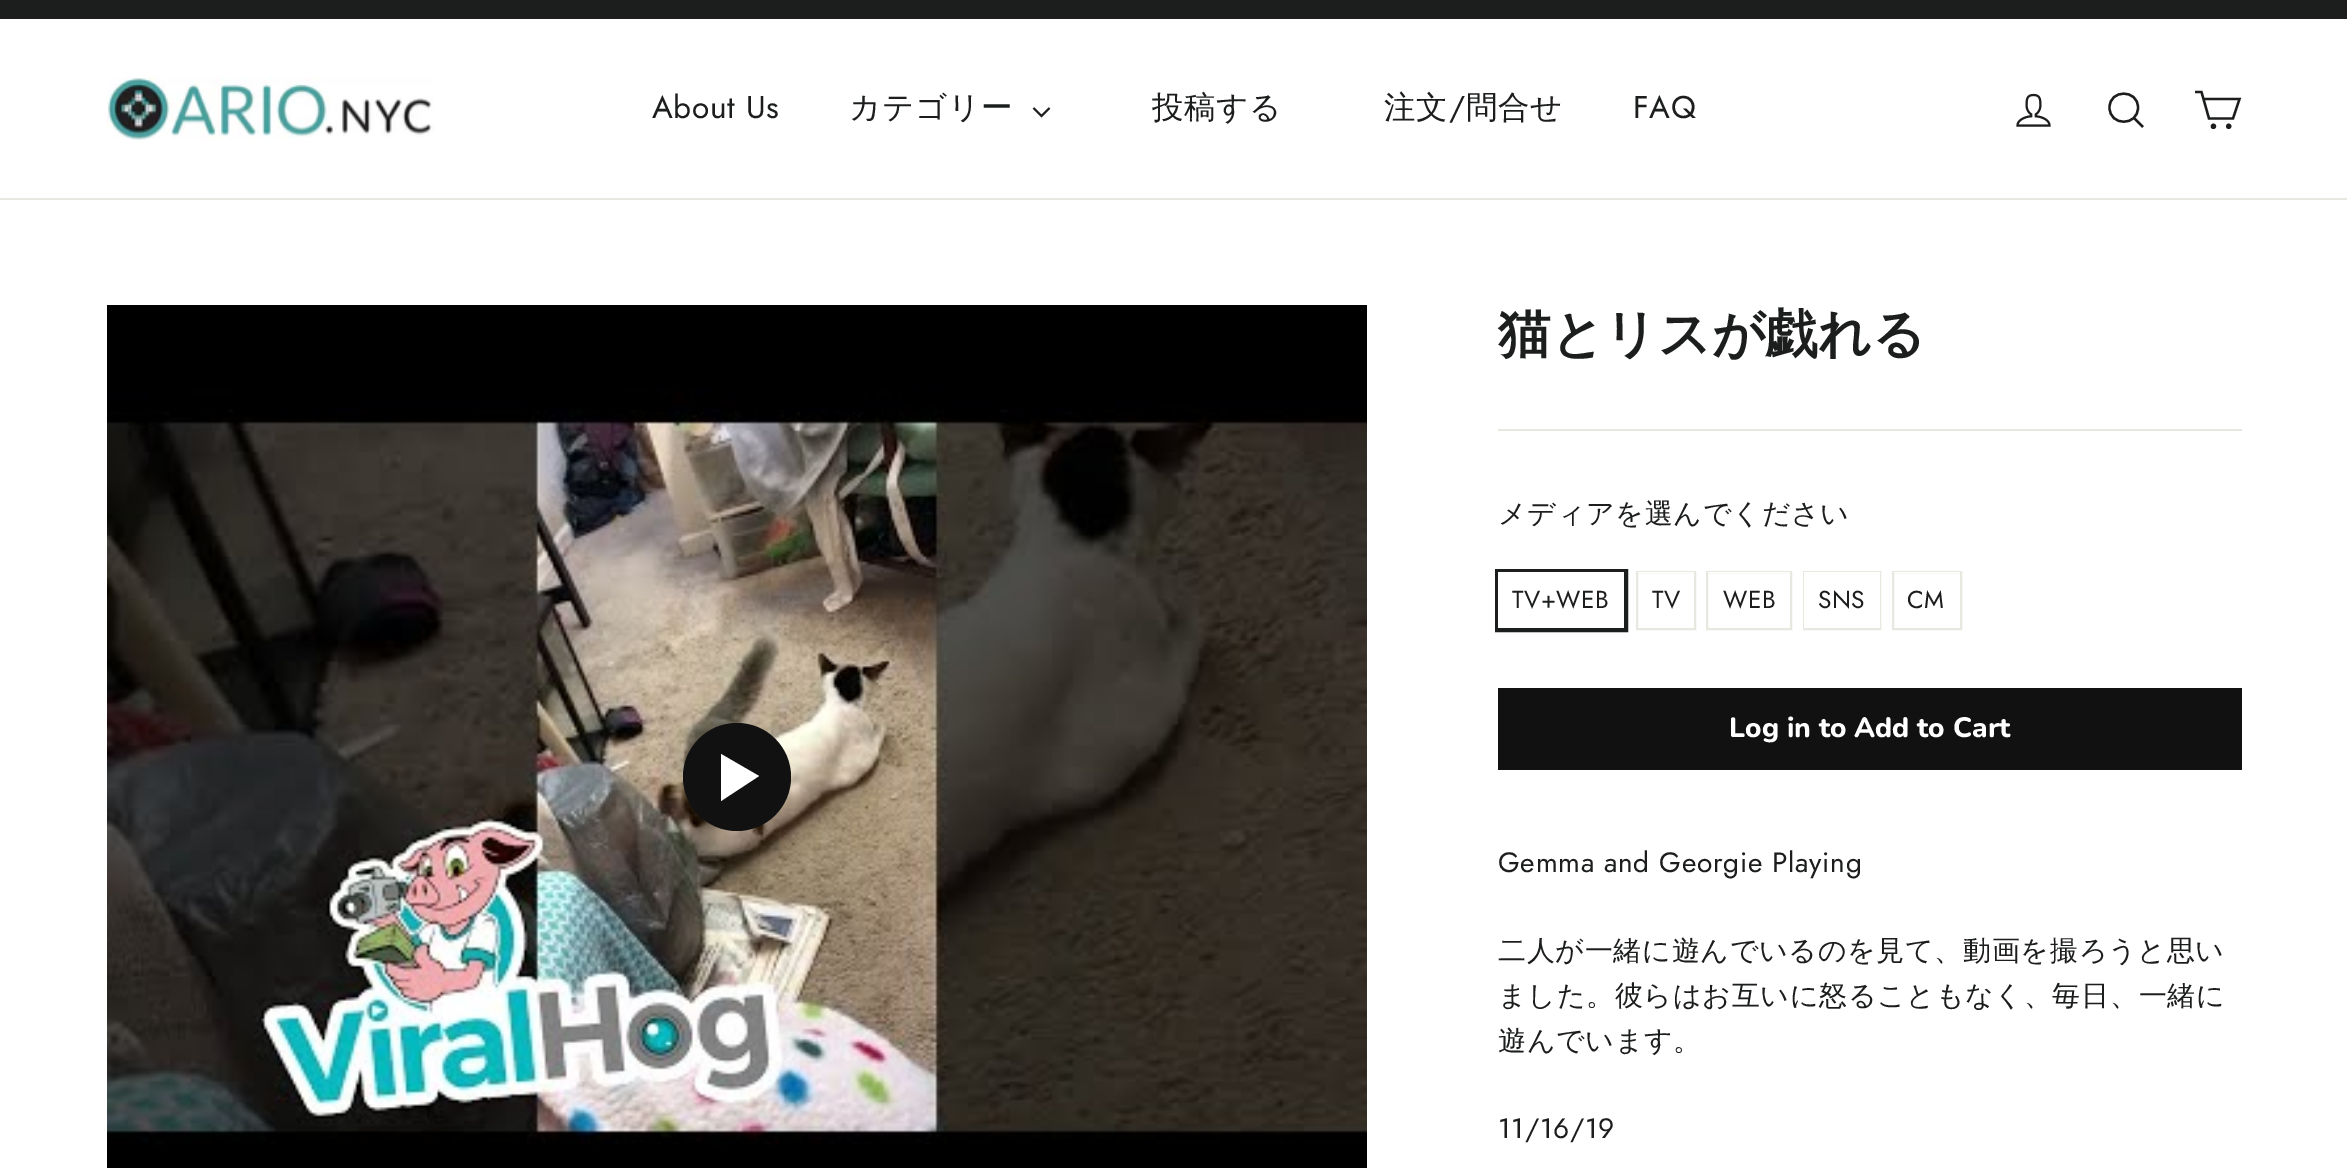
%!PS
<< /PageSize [2347 1168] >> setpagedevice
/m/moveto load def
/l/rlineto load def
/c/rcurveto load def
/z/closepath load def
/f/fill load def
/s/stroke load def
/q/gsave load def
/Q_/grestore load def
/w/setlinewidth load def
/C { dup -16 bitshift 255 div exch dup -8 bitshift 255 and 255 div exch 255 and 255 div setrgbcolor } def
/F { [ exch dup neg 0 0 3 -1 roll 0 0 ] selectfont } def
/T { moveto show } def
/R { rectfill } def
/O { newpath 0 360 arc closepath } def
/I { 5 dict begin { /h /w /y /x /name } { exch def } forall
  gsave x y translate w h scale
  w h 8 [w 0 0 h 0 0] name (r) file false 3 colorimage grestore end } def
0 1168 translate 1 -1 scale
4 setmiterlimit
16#FFFFFF C
0 0 2347 1168 R
16#1C1D1D C
0 0 2347 19 R
16#E8E8E1 C
0 198 2347 2 R
(1.rgb) 107 77 327 63 I
/Jost-Regular 31.5 F
16#1C1D1D C
652 118 m .7 0 (About Us) ashow
/WenQuanYiZenHei-Medium 31.5 F
849 118 m .7 0 (カテゴリー) ashow
1.9 w
1033.5 108 m 8 8 l 8 -8 l s
1152 118 m .7 0 (投稿する) ashow
1384 118 m .7 0 (注文) ashow
/Jost-Regular 31.5 F
1449 118 m .7 0 (/) ashow
/WenQuanYiZenHei-Medium 31.5 F
1466 118 m .7 0 (問合せ) ashow
/Jost-Regular 31.5 F
1633 118 m .7 0 (FAQ) ashow
(2.rgb) 2016 93 35 34 I
2.3 w
2138 107.5 m 0 19 -28.5 19 -28.5 0 c 0 -18.5 28.5 -18.5 28.5 0 c z 2143 127 m -9 -9 l s
2203.5 99 m 36 0 l -6.5 19.5 l -24 0 l -7.5 -26.5 l -6.5 0 l s
2213.4 126.3 1.5 O q f Q_
s
2228.7 126.3 1.5 O q f Q_
s
(3.rgb) 107 305 1260 863 I
16#111111 C
737 777 54 O f
16#FFFFFF C
721 754 m 0 47 l 38 -25 l z f
/WenQuanYiZenHei-Bold 52.5 F
16#1C1D1D C
(猫とリスが戯れる) 1498 352 T
16#E8E8E1 C
1498 429 744 2 R
/WenQuanYiZenHei-Medium 28 F
16#1C1D1D C
1498 523 m .7 0 (メディアを選んでください) ashow
4 w
1497 571 129 59 rectstroke
16#FFFFFF C
1498 572 126 56 R
/Jost-Regular 24.5 F
16#1C1D1D C
1512 608 m .5 0 (TV+WEB) ashow
16#E8E8E1 C
2 w
1637 572 58 57 rectstroke
16#FFFFFF C
1638 572 56 1 R
16#1C1D1D C
1652 608 m .5 0 (TV) ashow
16#E8E8E1 C
1707 572 84 57 rectstroke
16#FFFFFF C
1708 572 82 1 R
16#1C1D1D C
1723 608 m .5 0 (WEB) ashow
16#E8E8E1 C
1804 572 76 57 rectstroke
16#FFFFFF C
1804 572 76 56 R
16#1C1D1D C
1818 608 m .5 0 (SNS) ashow
16#E8E8E1 C
1893 572 68 57 rectstroke
16#FFFFFF C
1894 572 66 1 R
16#1C1D1D C
1907 608 m .5 0 (CM) ashow
16#111111 C
1498 688 744 82 R
/Nunito-ExtraBold 28 F
16#FFFFFF C
(Log in to Add to Cart) 1729 737 T
/Jost-Regular 28 F
16#1C1D1D C
1498 872 m .7 0 (Gemma and Georgie Playing) ashow
/WenQuanYiZenHei-Medium 28 F
1498 960 m .7 0 (二人が一緒に遊んでいるのを見て、動画を撮ろうと思い) ashow
1498 1005 m .7 0 (ました。彼らはお互いに怒ることもなく、毎日、一緒に) ashow
1498 1050 m .7 0 (遊んでいます。) ashow
/Jost-Regular 28 F
1498 1138 m .7 0 (11/16/19) ashow
showpage
